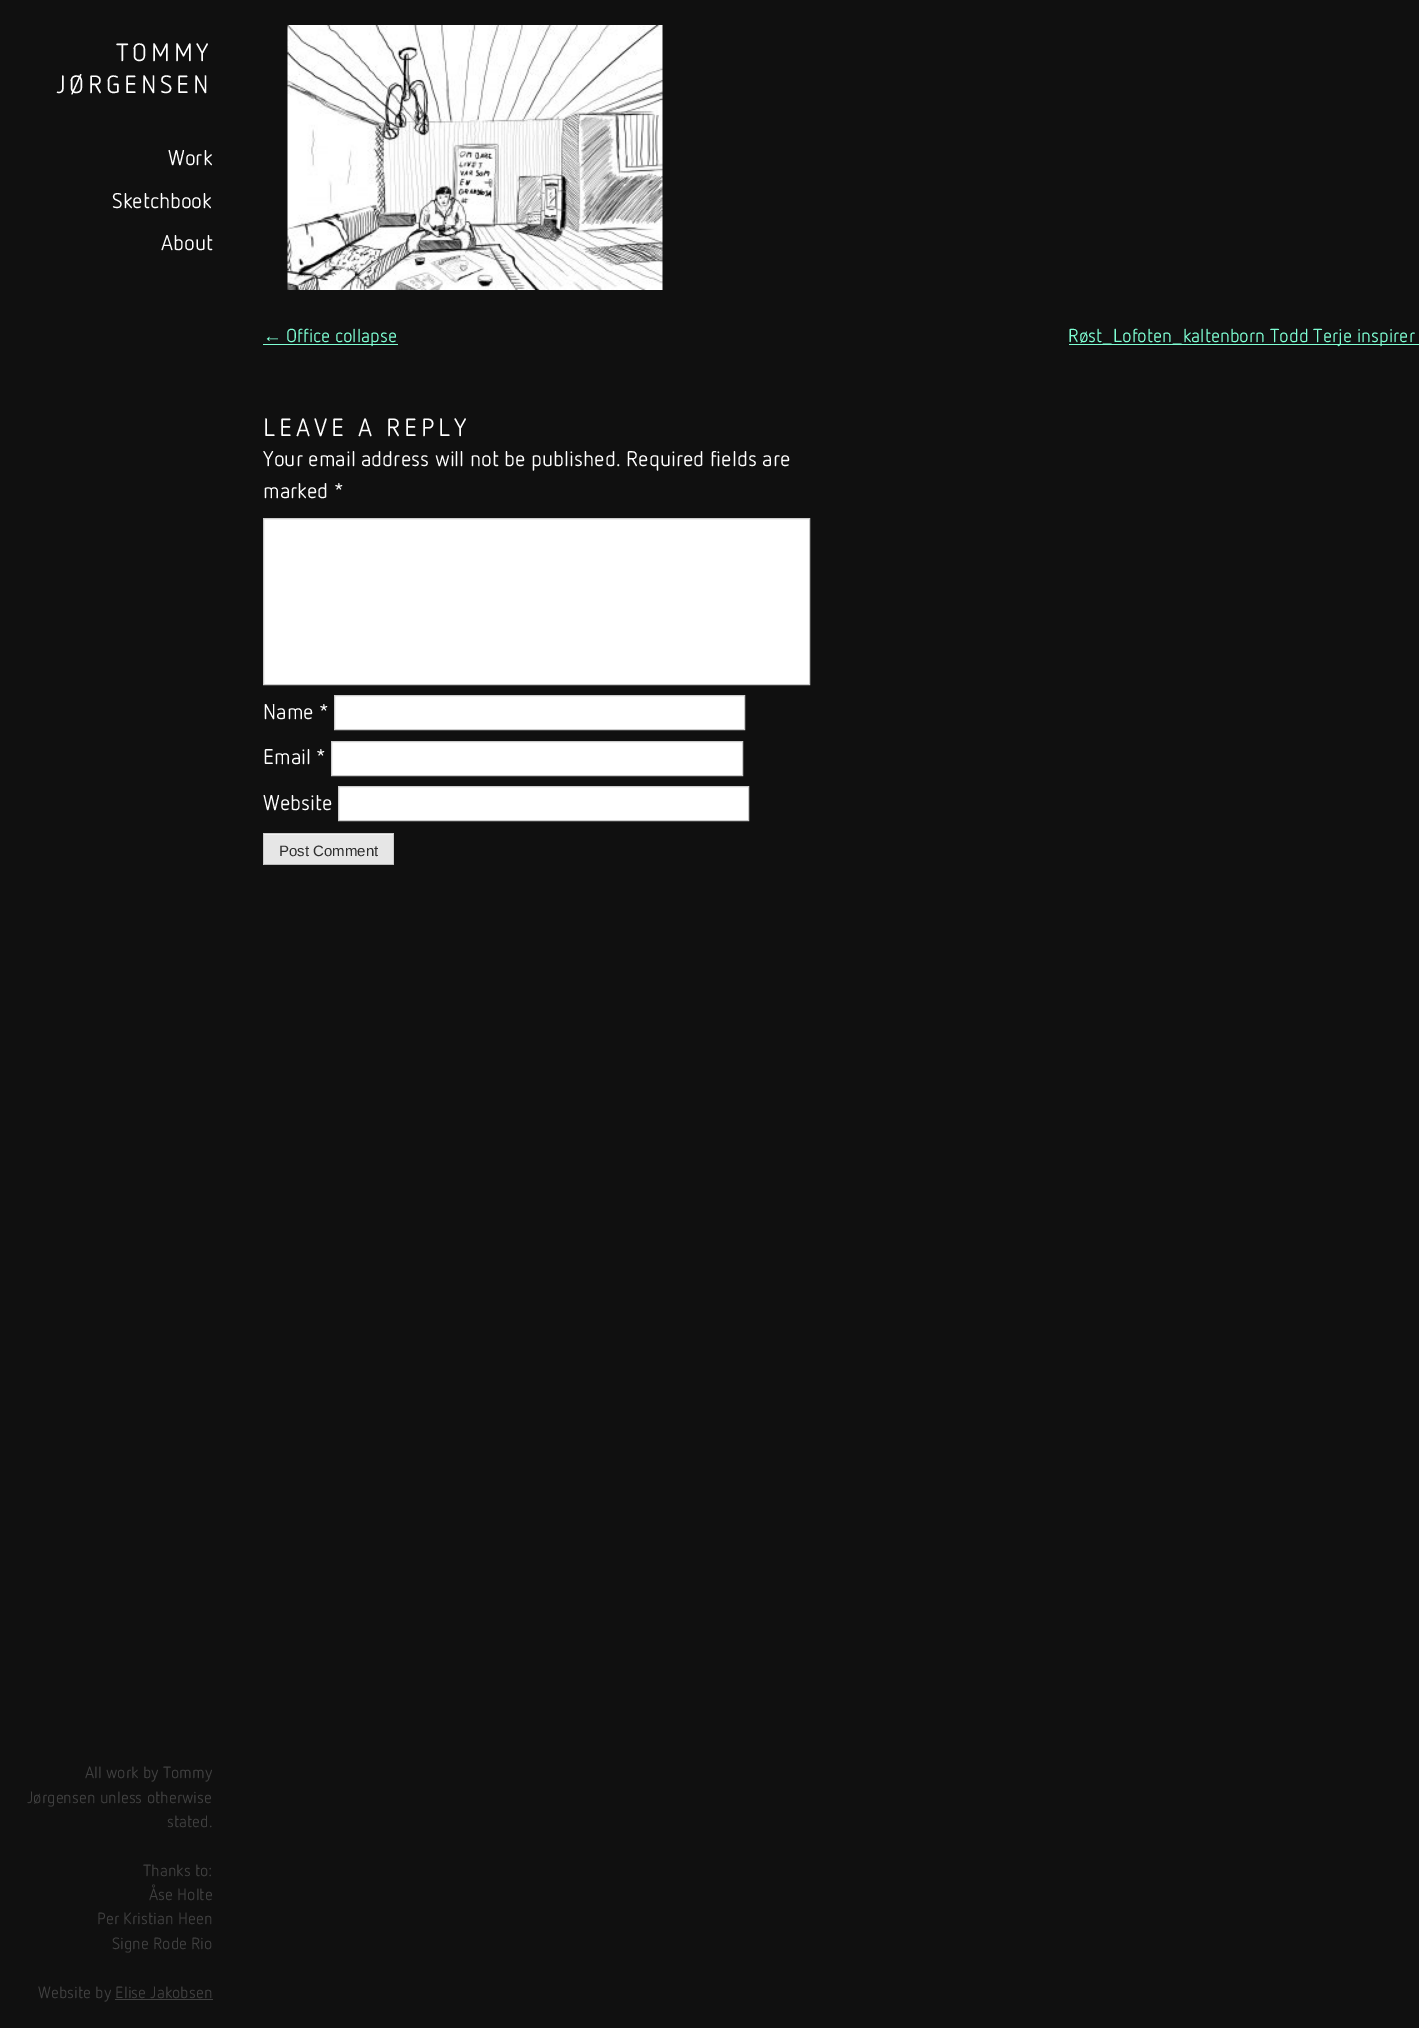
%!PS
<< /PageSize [1419 2028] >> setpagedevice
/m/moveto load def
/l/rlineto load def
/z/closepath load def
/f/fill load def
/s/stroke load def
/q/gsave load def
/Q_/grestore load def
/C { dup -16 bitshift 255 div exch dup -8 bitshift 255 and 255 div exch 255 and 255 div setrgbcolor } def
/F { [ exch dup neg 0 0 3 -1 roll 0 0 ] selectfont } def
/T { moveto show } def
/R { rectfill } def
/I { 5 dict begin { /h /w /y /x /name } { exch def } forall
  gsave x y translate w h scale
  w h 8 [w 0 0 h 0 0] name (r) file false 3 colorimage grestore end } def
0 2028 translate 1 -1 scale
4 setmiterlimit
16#101010 C
0 0 1419 2028 R
/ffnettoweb-Regular 25 F
16#FFFFFF C
116 61 m 3.75 0 (TOMMY) ashow
56 93 m 3.75 0 (JØRGENSEN) ashow
/ffnettoweb-Regular 21.25 F
(Work) 168 165 T
(Sketchbook) 112 208 T
(About) 161 250 T
/ffnettoweb-Regular 16.25 F
16#404040 C
(All work by Tommy) 85 1778 T
(Jørgensen unless otherwise) 27 1803 T
(stated.) 167 1827 T
(Thanks to:) 143 1876 T
(Åse Holte) 149 1900 T
(Per Kristian Heen) 97 1924 T
(Signe Rode Rio) 112 1949 T
(Website by Elise Jakobsen) 38 1998 T
115 1999 98 1 R
(1.rgb) 287 25 376 265 I
/LiberationSans-Regular 18.75 F
16#7FFFD4 C
(←) 263 342 T
263 344 135 1 R
/ffnettoweb-Regular 18.75 F
(Office collapse) 286 342 T
1069 344 350 1 R
(Røst_Lofoten_kaltenborn Todd Terje inspirer) 1068 342 T
/ffnettoweb-Regular 25 F
16#FFFFFF C
263 436 m 3.75 0 (LEAVE A REPLY) ashow
/ffnettoweb-Regular 21.25 F
(Your email address will not be published. Required fields are) 263 466 T
(marked *) 263 498 T
263.5 518.5 m 546 0 l 0 166 l -546 0 l z q f Q_
16#CCCCCC C
s
16#FFFFFF C
(Name *) 263 719 T
334.5 695.5 m 410 0 l 0 34 l -410 0 l z q f Q_
16#CCCCCC C
s
16#FFFFFF C
(Email *) 263 764 T
331.5 741.5 m 411 0 l 0 34 l -411 0 l z q f Q_
16#CCCCCC C
s
16#FFFFFF C
(Website) 263 810 T
338.5 786.5 m 410 0 l 0 34 l -410 0 l z q f Q_
16#CCCCCC C
s
16#E6E6E6 C
264 835 129 29 R
16#F3F3F3 C
264 834 129 1 R
16#CCCCCC C
263 833 131 1 R
393 833 1 32 R
16#BBBBBB C
263 864 131 1 R
16#CCCCCC C
263 833 1 32 R
/LiberationSans-Regular 15 F
16#2E2E2E C
(Post Comment) 279 856 T
showpage
